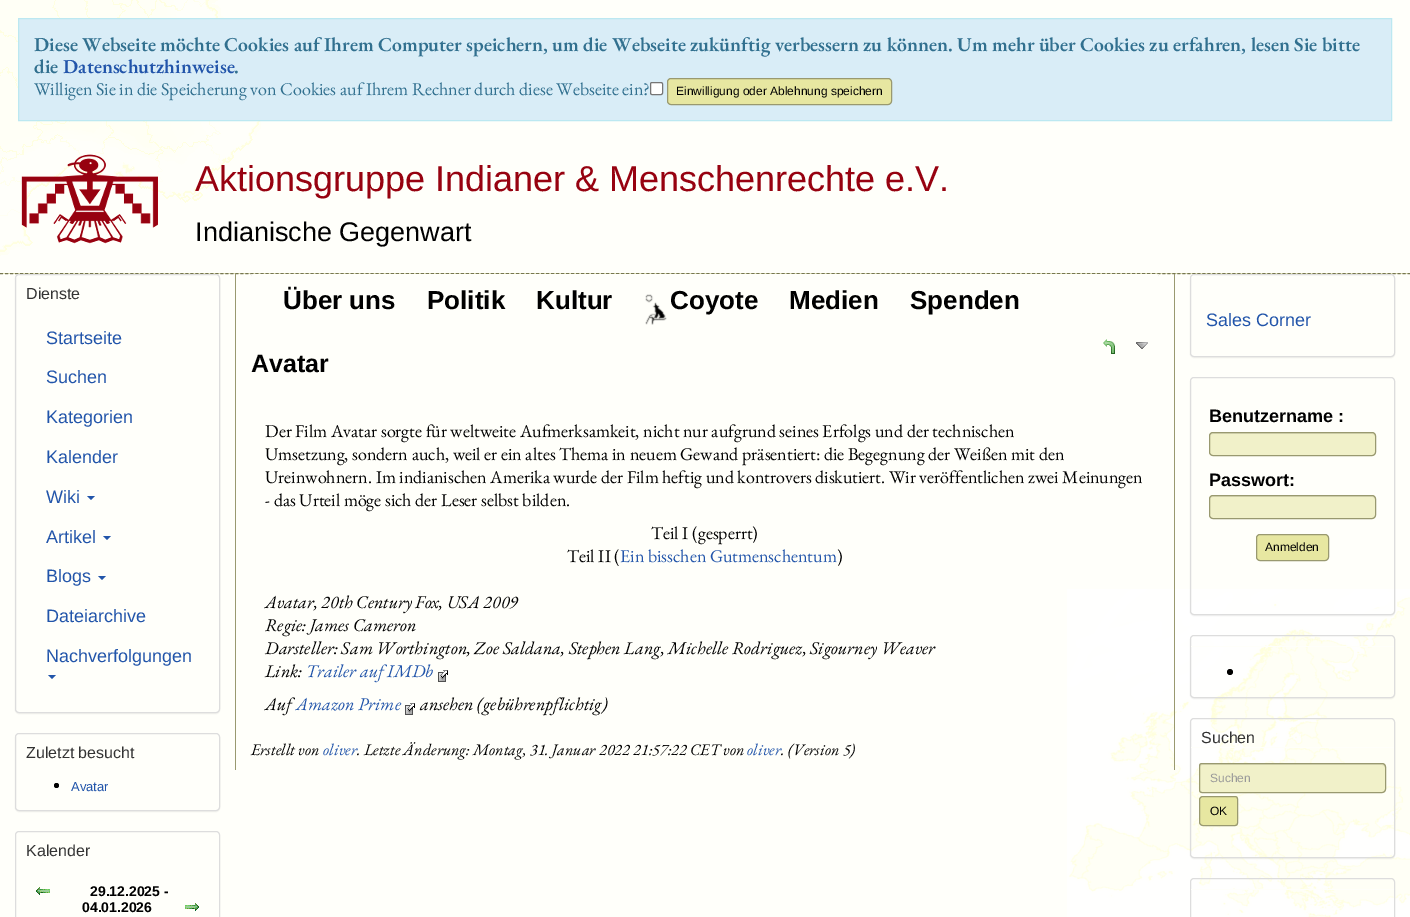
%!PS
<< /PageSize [1410 917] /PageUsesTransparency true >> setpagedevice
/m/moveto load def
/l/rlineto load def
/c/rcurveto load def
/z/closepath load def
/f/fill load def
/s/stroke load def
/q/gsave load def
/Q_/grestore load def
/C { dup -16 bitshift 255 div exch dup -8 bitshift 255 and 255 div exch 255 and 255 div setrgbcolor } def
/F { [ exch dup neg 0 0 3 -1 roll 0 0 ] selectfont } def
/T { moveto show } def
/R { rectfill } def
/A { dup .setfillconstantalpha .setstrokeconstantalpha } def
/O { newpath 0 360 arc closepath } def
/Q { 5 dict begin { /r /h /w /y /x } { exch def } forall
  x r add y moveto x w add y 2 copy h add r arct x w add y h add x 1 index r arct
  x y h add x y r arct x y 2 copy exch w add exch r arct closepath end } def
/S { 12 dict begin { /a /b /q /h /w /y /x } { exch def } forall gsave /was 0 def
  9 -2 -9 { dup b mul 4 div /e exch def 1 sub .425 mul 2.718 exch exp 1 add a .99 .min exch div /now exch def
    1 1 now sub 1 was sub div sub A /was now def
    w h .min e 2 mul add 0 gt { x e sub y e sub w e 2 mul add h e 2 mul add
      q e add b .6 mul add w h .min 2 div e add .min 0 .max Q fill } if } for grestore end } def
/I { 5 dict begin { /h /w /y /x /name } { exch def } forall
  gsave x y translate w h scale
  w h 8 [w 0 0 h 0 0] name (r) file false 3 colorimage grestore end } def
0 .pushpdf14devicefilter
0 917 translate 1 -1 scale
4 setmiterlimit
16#FFFFFA C
0 0 1410 917 R
(1.rgb) 1067 589 343 328 I
(2.rgb) 0 0 261 256 I
16#D9EDF7 C
18.5 18.5 m 1373 0 l 0 102 l -1373 0 l z q f Q_
16#BCE8F1 C
s
/EBGaramond-SemiBold 19.8 F
16#31708F C
(Diese Webseite möchte Cookies auf Ihrem Computer speichern, um die Webseite zukünftig verbessern zu können. Um mehr über Cookies zu erfahren, lesen Sie bitte) 34 51 T
(die) 34 73 T
16#2255AA C
(Datenschutzhinweise) 63 73 T
16#31708F C
(.) 234 73 T
/EBGaramond-Regular 18 F
(Willigen Sie in die Speicherung von Cookies auf Ihrem Rechner durch diese Webseite ein?) 34 95 T
16#FFFFFF C
650.5 82.5 12 12 1.5 Q q f Q_
16#767676 C
s
16#E7E7A1 C
667.5 78.5 224 26 3.5 Q q f Q_
16#999970 C
s
/LiberationSans-Regular 12 F
16#000000 C
(Einwilligung oder Ablehnung speichern) 676 95 T
(3.rgb) 21 154 137 90 I
/LiberationSans-Regular 36 F
16#970210 C
(Aktionsgruppe Indianer & Menschenrechte e.V.) 195 191 T
/LiberationSans-Regular 27 F
16#000000 C
(Indianische Gegenwart) 195 241 T
16#E0E1B8 C
0 273 1410 1 R
16#777750 C
[3 2.01] 0 setdash
0 273.5 m 1410 0 l s
q
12 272 m 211 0 l 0 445 l -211 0 l z 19 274 m 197 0 l 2 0 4 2 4 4 c 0 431 l 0 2 -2 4 -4 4 c -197 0 l -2 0 -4 -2 -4 -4 c 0 -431 l 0 -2 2 -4 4 -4 c z eoclip newpath
16#000000 C
15 275 205 439 4 .5 .05 S
Q_
16#DDDDDD C
[] 0 setdash
15.5 274.5 204 438 3.5 Q s
/LiberationSans-Regular 16 F
16#333333 C
(Dienste) 26 299 T
/LiberationSans-Regular 18 F
16#2255AA C
(Startseite) 46 344 T
(Suchen) 46 383 T
(Kategorien) 46 423 T
(Kalender) 46 463 T
(Wiki) 46 503 T
87 496 m 8 0 l -4 4 l z f
(Artikel) 46 543 T
103 536 m 8 0 l -4 4 l z f
(Blogs) 46 582 T
98 576 m 8 0 l -4 4 l z f
(Dateiarchive) 46 622 T
(Nachverfolgungen) 46 662 T
48 675 m 8 0 l -4 4 l z f
q
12 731 m 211 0 l 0 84 l -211 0 l z 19 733 m 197 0 l 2 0 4 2 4 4 c 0 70 l 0 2 -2 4 -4 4 c -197 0 l -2 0 -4 -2 -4 -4 c 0 -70 l 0 -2 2 -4 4 -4 c z eoclip newpath
16#000000 C
15 734 205 78 4 .5 .05 S
Q_
16#DDDDDD C
15.5 733.5 204 77 3.5 Q s
/LiberationSans-Regular 16 F
16#333333 C
(Zuletzt besucht) 26 758 T
16#000000 C
56.5 785.5 2.5 O f
/LiberationSans-Regular 13 F
16#2255AA C
(Avatar) 71 791 T
16#DDDDDD C
15.5 831.5 204 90 3.5 Q s
/LiberationSans-Regular 16 F
16#333333 C
(Kalender) 26 856 T
(4.rgb) 36 887 14 8 I
/LiberationSans-Bold 14 F
16#000000 C
(29.12.2025 -) 90 896 T
(04.01.2026) 82 912 T
(5.rgb) 185 903 14 8 I
16#999970 C
1174 274 1 496 R
235 274 1 496 R
16#F0F0E9 C
251 274 908 4 R
16#FFFFFA C
251 274 908 57 4 Q f
/LiberationSans-Bold 26 F
16#000000 C
(Über uns) 283 309 T
(Politik) 427 309 T
(Kultur) 536 309 T
(6.rgb) 645 294 22 31 I
(Coyote) 670 309 T
(Medien) 789 309 T
(Spenden) 910 309 T
(7.rgb) 1103 339 12 15 I
(8.rgb) 1136 342 12 7 I
/LiberationSans-Bold 25 F
(Avatar) 251 372 T
/EBGaramond-Regular 18 F
(Der Film Avatar sorgte für weltweite Aufmerksamkeit, nicht nur aufgrund seines Erfolgs und der technischen) 265 437 T
(Umsetzung, sondern auch, weil er ein altes Thema in neuem Gewand präsentiert: die Begegnung der Weißen mit den) 265 460 T
(Ureinwohnern. Im indianischen Amerika wurde der Film heftig und kontrovers diskutiert. Wir veröffentlichen zwei Meinungen) 265 483 T
(- das Urteil möge sich der Leser selbst bilden.) 265 506 T
(Teil I \(gesperrt\)) 651 539 T
(Teil II \() 567 562 T
16#2255AA C
(Ein bisschen Gutmenschentum) 620 562 T
16#000000 C
(\)) 837 562 T
/EBGaramond-Italic 18 F
(Avatar, 20th Century Fox, USA 2009) 265 608 T
(Regie: James Cameron) 265 631 T
(Darsteller: Sam Worthington, Zoe Saldana, Stephen Lang, Michelle Rodriguez, Sigourney Weaver) 265 654 T
(Link:) 265 677 T
16#2255AA C
(Trailer auf IMDb) 306 677 T
(9.rgb) 438 670 10 12 I
16#000000 C
(Auf) 265 710 T
16#2255AA C
(Amazon Prime) 296 710 T
(9.rgb) 405 703 10 12 I
16#000000 C
(ansehen \(gebührenpflichtig\)) 420 710 T
/EBGaramond-Italic 16.2 F
(Erstellt von) 251 755 T
16#2255AA C
(oliver) 323 755 T
16#000000 C
(. Letzte Änderung: Montag, 31. Januar 2022 21:57:22 CET von) 357 755 T
16#2255AA C
(oliver) 747 755 T
16#000000 C
(. \(Version 5\)) 781 755 T
q
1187 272 m 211 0 l 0 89 l -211 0 l z 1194 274 m 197 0 l 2 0 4 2 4 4 c 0 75 l 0 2 -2 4 -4 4 c -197 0 l -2 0 -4 -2 -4 -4 c 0 -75 l 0 -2 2 -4 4 -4 c z eoclip newpath
1190 275 205 83 4 .5 .05 S
Q_
16#DDDDDD C
1190.5 274.5 204 82 3.5 Q s
/LiberationSans-Regular 18 F
16#2255AA C
(Sales Corner) 1206 326 T
q
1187 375 m 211 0 l 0 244 l -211 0 l z 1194 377 m 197 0 l 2 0 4 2 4 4 c 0 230 l 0 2 -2 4 -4 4 c -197 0 l -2 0 -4 -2 -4 -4 c 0 -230 l 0 -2 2 -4 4 -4 c z eoclip newpath
16#000000 C
1190 378 205 238 4 .5 .05 S
Q_
16#DDDDDD C
1190.5 377.5 204 237 3.5 Q s
/LiberationSans-Bold 18 F
16#000000 C
(Benutzername :) 1209 422 T
16#F1F1C9 C
1209 432 167 24 4 Q f
16#DFDFBA C
1213 434 m 159 0 l 2 0 3 1 3 3 c 0 -2 -1 -4 -3 -4 c -159 0 l -2 0 -3 2 -3 4 c 0 -2 1 -3 3 -3 c z f
16#999970 C
1209.5 432.5 166 23 3.5 Q s
16#000000 C
(Passwort:) 1209 486 T
16#F1F1C9 C
1209 495 167 24 4 Q f
16#DFDFBA C
1213 497 m 159 0 l 2 0 3 1 3 3 c 0 -2 -1 -4 -3 -4 c -159 0 l -2 0 -3 2 -3 4 c 0 -2 1 -3 3 -3 c z f
16#999970 C
1209.5 495.5 166 23 3.5 Q s
16#E7E7A1 C
1256.5 534.5 72 26 3.5 Q q f Q_
16#999970 C
s
/LiberationSans-Regular 12 F
16#000000 C
(Anmelden) 1265 551 T
q
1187 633 m 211 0 l 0 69 l -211 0 l z 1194 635 m 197 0 l 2 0 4 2 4 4 c 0 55 l 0 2 -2 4 -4 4 c -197 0 l -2 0 -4 -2 -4 -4 c 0 -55 l 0 -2 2 -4 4 -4 c z eoclip newpath
1190 636 205 63 4 .5 .05 S
Q_
16#DDDDDD C
1190.5 635.5 204 62 3.5 Q s
16#FFFFFA C
1191 646 203 1 R
16#000000 C
1230 672 3 O f
q
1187 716 m 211 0 l 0 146 l -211 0 l z 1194 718 m 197 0 l 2 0 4 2 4 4 c 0 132 l 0 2 -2 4 -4 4 c -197 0 l -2 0 -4 -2 -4 -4 c 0 -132 l 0 -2 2 -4 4 -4 c z eoclip newpath
1190 719 205 140 4 .5 .05 S
Q_
16#DDDDDD C
1190.5 718.5 204 139 3.5 Q s
16#FFFFFA C
1191 747 203 1 R
/LiberationSans-Regular 16 F
16#333333 C
(Suchen) 1201 743 T
16#F1F1C9 C
1202 763 m 180 0 l 2 0 4 2 4 4 c 0 22 l 0 2 -2 4 -4 4 c -180 0 l -1.5 0 -3 -1.5 -3 -3 c 0 -24 l 0 -1.5 1.5 -3 3 -3 c z f
16#DFDFBA C
1202 765 m 180 0 l 2 1 l 1 2 l 0 -1 l 0 -2 -1 -3 -3 -3 c -180 0 l -1 0 -2 1 -2 2 c 0 1 l 0 -1 1 -2 2 -2 c z f
16#999970 C
1202 763.5 m 180 0 l 2 0 3.5 1.5 3.5 3.5 c 0 22 l 0 2 -1.5 3.5 -3.5 3.5 c -180 0 l -1.5 0 -2.5 -1 -2.5 -2.5 c 0 -24 l 0 -1.5 1 -2.5 2.5 -2.5 c z s
/LiberationSans-Regular 12 F
16#999999 C
(Suchen) 1210 782 T
16#E7E7A1 C
1203 796.5 m 32 0 l 1.5 0 2.5 1 2.5 2.5 c 0 24 l 0 1.5 -1 2.5 -2.5 2.5 c -32 0 l -2 0 -3.5 -1.5 -3.5 -3.5 c 0 -22 l 0 -2 1.5 -3.5 3.5 -3.5 c z q f Q_
16#999970 C
s
16#000000 C
(OK) 1210 815 T
16#DDDDDD C
1190.5 878.5 204 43 3.5 Q s
16#FFFFFA C
1191 889 203 1 R
.poppdf14devicefilter showpage
